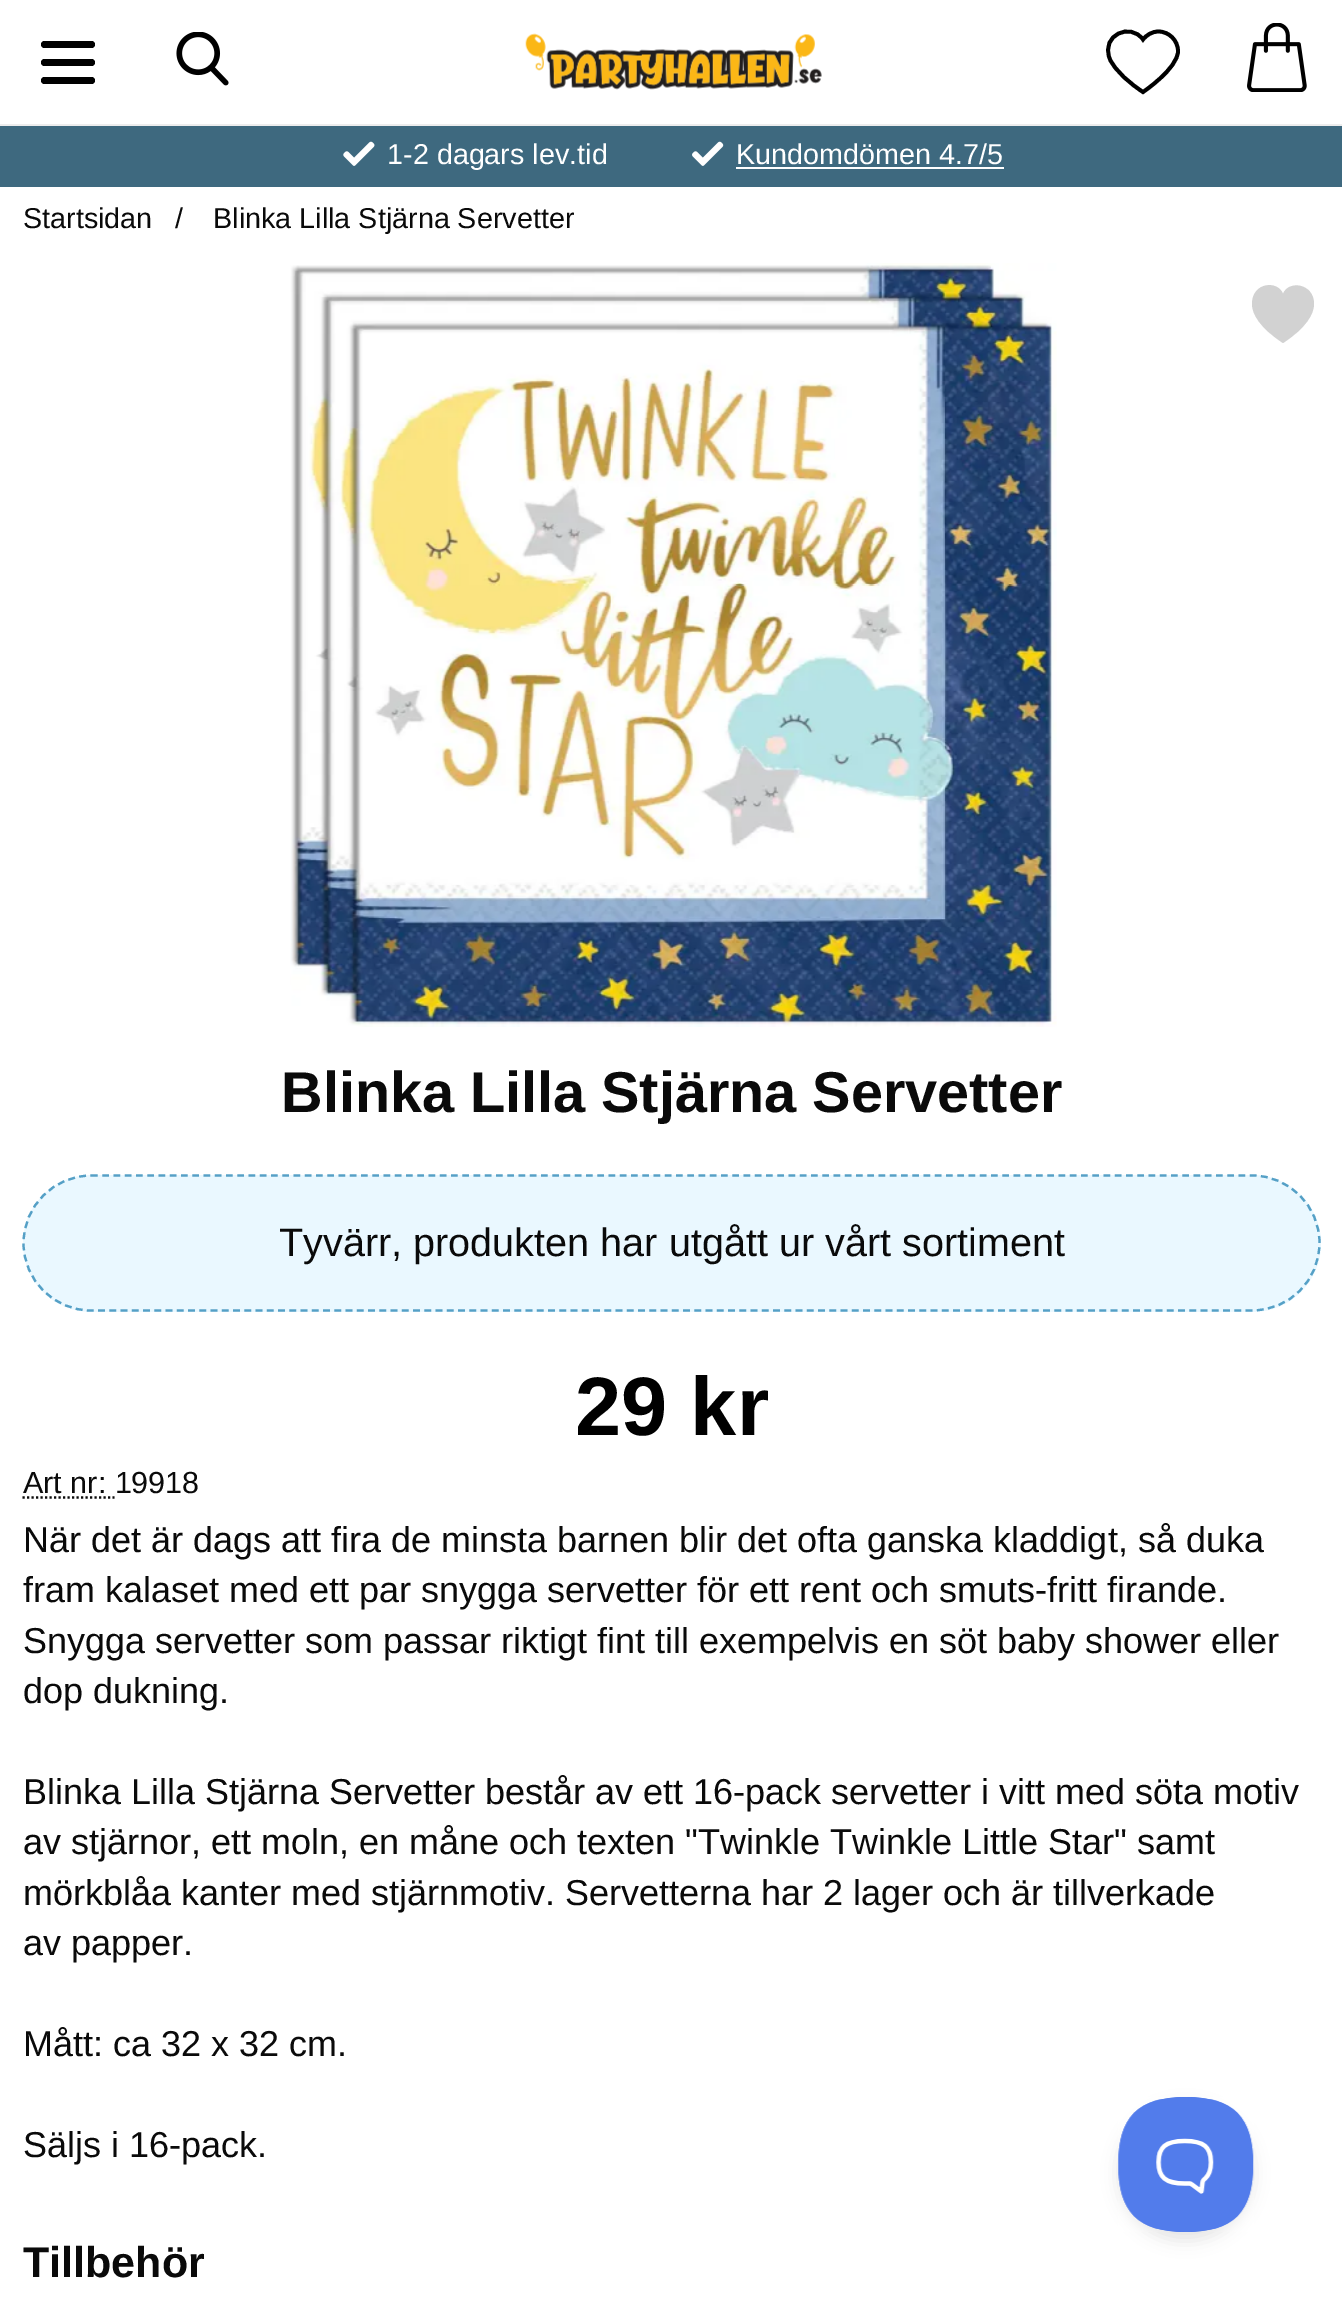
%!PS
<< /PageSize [1342 2322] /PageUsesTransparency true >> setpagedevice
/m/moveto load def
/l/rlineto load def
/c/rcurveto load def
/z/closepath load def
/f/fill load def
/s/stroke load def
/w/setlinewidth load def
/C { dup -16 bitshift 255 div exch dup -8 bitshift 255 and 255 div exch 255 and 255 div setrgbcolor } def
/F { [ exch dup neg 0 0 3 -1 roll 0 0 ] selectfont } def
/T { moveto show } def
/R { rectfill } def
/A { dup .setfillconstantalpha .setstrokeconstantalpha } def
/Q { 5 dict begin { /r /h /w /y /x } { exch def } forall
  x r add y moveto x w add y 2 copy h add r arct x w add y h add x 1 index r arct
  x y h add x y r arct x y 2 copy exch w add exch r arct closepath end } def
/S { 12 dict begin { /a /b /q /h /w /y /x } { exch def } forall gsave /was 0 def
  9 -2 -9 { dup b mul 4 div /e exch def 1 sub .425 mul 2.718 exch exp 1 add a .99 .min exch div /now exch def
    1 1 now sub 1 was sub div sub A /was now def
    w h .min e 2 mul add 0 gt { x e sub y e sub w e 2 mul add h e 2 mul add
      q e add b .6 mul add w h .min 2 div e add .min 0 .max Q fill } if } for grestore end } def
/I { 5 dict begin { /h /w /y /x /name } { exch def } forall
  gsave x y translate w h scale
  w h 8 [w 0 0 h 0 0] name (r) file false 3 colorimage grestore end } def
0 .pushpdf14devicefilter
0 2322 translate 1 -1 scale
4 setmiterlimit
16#FFFFFF C
0 0 1342 2322 R
16#EDEDED C
0 124 1342 2 R
16#000000 C
41 41 54 7 3.5 Q f
41 59 54 7 3.5 Q f
41 77 54 7 3.5 Q f
(1.rgb) 176 32 53 54 I
(2.rgb) 525 33 297 57 I
3.8 w
1158.5 31.5 m 10.5 0 19.5 9 19.5 19.5 c 0 17.5 -35 41 -35 41 c -11.5 -7.5 -28.5 -21 -33.5 -34 c -8.5 -23 21 -36 33.5 -18.5 c 3.5 -4.5 9 -8 15.5 -8 c z s
(3.rgb) 1247 23 60 69 I
16#3E697F C
0 126 1342 61 R
(4.rgb) 343 141 32 25 I
/LiberationSans-Regular 28.75 F
16#FFFFFF C
(1-2 dagars lev.tid) 387 164 T
(5.rgb) 692 141 32 25 I
(Kundomdömen 4.7/5) 736 164 T
736 167 268 2 R
16#0A0A0A C
(Startsidan) 23 228 T
(/) 175 228 T
(Blinka Lilla Stjärna Servetter) 213 228 T
(6.rgb) 290 263 767 764 I
16#D2D2D2 C
1283 294 m -5 -14 -31 -12 -31 10 c 0 10 8 24 31 39 c 23 -15 31 -29 31 -39 c 0 -21 -26 -24 -31 -10 c z f
/LiberationSans-Bold 57.6 F
16#0A0A0A C
(Blinka Lilla Stjärna Servetter) 281 1112 T
16#EAF8FF C
23 1175 1298 137 68.5 Q f
16#55A0C6 C
2.2 w
[6.75 4.5] 0 setdash
91 1175.5 m 1161 0 l 37.5 0 67.5 30.5 67.5 67.5 c 0 37.5 -30 67.5 -67.5 67.5 c -1161 0 l -37 0 -67.5 -30 -67.5 -67.5 c 0 -37 30.5 -67.5 67.5 -67.5 c z s
/LiberationSans-Regular 39.6 F
16#0A0A0A C
(Tyvärr, produkten har utgått ur vårt sortiment) 279 1256 T
/LiberationSans-Bold 83 F
16#000000 C
(29 kr) 575 1435 T
/LiberationSans-Regular 30.5 F
16#0A0A0A C
(Art nr: 19918) 23 1493 T
[2.25 2.25] 0 setdash
22.5 1497.5 m 92 0 l s
/LiberationSans-Regular 36 F
(När det är dags att fira de minsta barnen blir det ofta ganska kladdigt, så duka) 23 1552 T
(fram kalaset med ett par snygga servetter för ett rent och smuts-fritt firande.) 23 1602 T
(Snygga servetter som passar riktigt fint till exempelvis en söt baby shower eller) 23 1653 T
(dop dukning.) 23 1703 T
(Blinka Lilla Stjärna Servetter består av ett 16-pack servetter i vitt med söta motiv) 23 1804 T
(av stjärnor, ett moln, en måne och texten "Twinkle Twinkle Little Star" samt) 23 1854 T
(mörkblåa kanter med stjärnmotiv. Servetterna har 2 lager och är tillverkade) 23 1905 T
(av papper.) 23 1955 T
(Mått: ca 32 x 32 cm.) 23 2056 T
(Säljs i 16-pack.) 23 2157 T
/LiberationSans-Bold 43 F
(Tillbehör) 23 2277 T
16#000000 C
1118 2106 135 135 67.5 8 .1 S
(7.rgb) 1118 2097 136 135 I
.poppdf14devicefilter showpage
